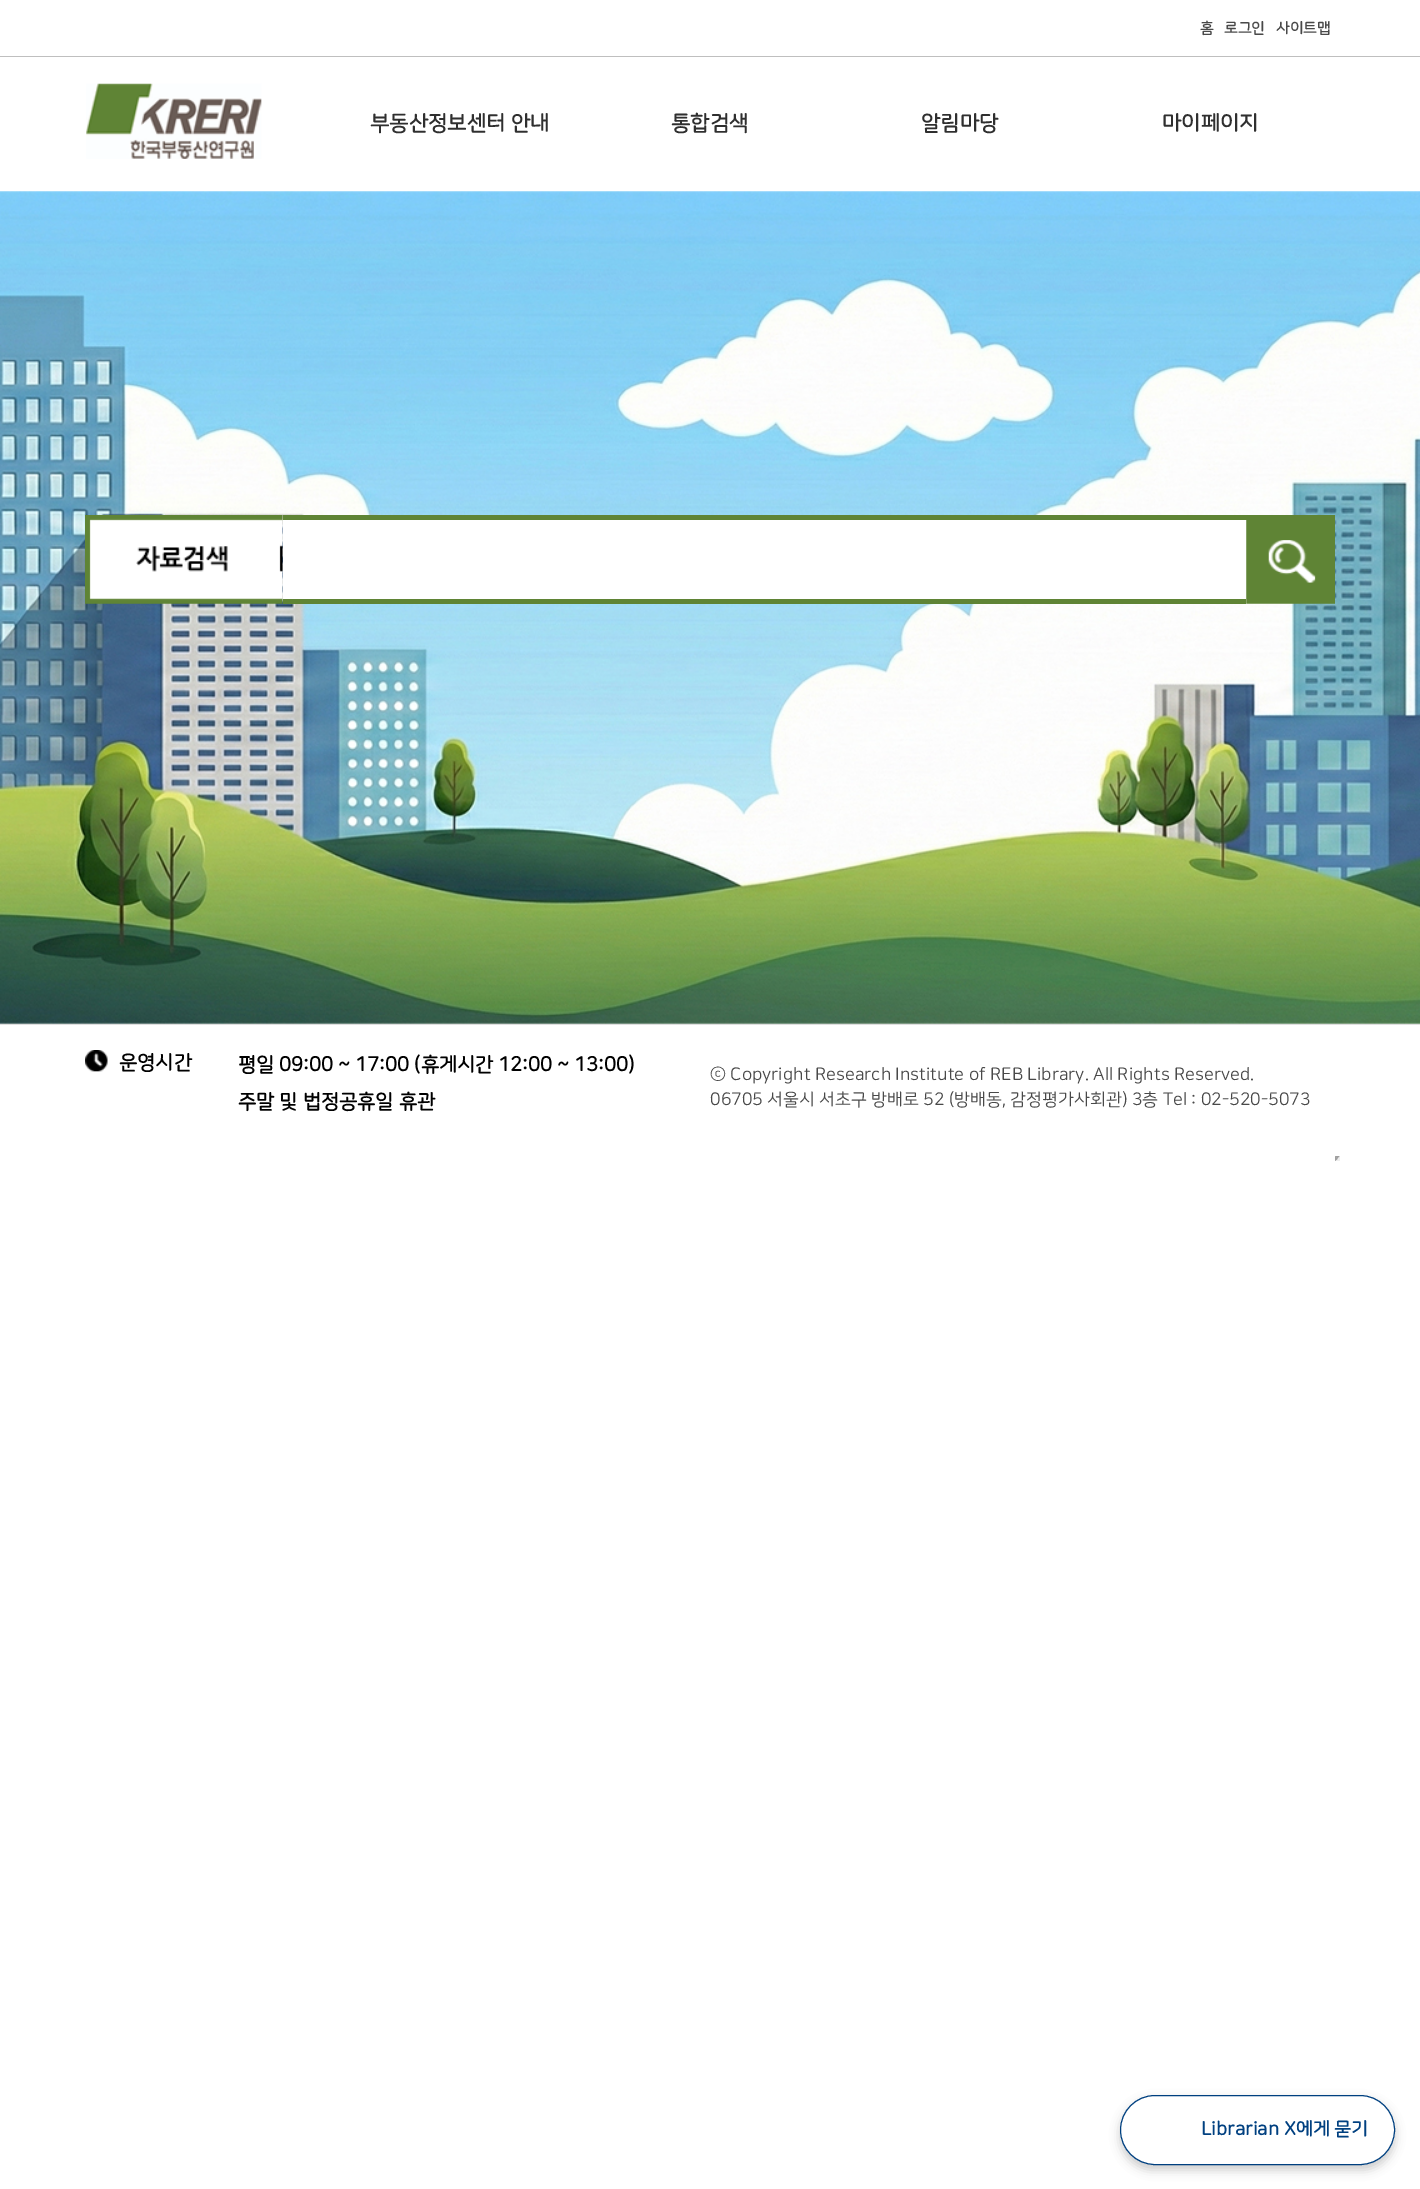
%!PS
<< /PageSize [1420 2189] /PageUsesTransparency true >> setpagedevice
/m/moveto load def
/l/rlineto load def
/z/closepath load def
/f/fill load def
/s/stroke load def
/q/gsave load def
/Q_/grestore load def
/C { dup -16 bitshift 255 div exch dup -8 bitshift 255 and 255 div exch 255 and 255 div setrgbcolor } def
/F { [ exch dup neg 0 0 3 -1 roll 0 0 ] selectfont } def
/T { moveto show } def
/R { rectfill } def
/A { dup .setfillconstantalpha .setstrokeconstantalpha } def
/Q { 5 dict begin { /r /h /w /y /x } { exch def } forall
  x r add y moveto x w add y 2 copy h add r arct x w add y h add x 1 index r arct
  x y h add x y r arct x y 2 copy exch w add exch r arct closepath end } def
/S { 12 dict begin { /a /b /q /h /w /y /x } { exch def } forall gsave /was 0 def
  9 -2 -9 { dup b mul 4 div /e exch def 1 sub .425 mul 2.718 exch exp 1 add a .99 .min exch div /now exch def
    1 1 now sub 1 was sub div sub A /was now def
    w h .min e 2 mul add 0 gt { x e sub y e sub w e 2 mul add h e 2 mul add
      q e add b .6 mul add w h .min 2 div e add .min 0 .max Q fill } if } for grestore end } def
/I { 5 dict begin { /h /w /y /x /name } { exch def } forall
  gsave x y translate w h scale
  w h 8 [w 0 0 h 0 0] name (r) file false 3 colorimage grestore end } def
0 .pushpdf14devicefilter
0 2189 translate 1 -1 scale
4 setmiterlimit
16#FFFFFF C
0 0 1420 2189 R
16#BFBFBF C
0 56 1420 1 R
/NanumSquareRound-Bold 15 F
16#494949 C
(홈) 1200 33 T
(로그인) 1224 33 T
(사이트맵) 1276 33 T
(1.rgb) 86 83 176 76 I
/NanumSquareRound-Bold 21.25 F
16#2F2F2F C
(부동산정보센터 안내) 370 130 T
(통합검색) 671 130 T
(알림마당) 921 130 T
(마이페이지) 1162 130 T
(2.rgb) 0 191 1420 833 I
(3.rgb) 85 515 198 89 I
16#FFFFFF C
283 520 963 79 R
16#5F8435 C
283 515 1052 5 R
283 599 963 5 R
(4.rgb) 1246 520 89 84 I
16#DFDFDF C
0 1024 1420 1 R
(5.rgb) 85 1050 23 22 I
/NanumSquareRound-Bold 20 F
16#000000 C
(운영시간) 119 1069 T
(평일 09:00 ~ 17:00 \(휴게시간 12:00 ~ 13:00\)) 238 1071 T
(주말 및 법정공휴일 휴관) 238 1108 T
/NanumSquareRound-Regular 17.5 F
16#494949 C
(ⓒ Copyright Research Institute of REB Library. All Rights Reserved.) 710 1080 T
(06705 서울시 서초구 방배로 52 \(방배동, 감정평가사회관\) 3층 Tel : 02-520-5073) 710 1105 T
16#9F9F9F C
1335 1156 m 5 0 l -2.5 3 l z f
16#EEEEEE C
1340 1156 m 0 5 l -2.5 -2 l z f
1340 1161 m -5 0 l 2.5 -2 l z f
16#9F9F9F C
1335 1161 m 0 -5 l 2.5 3 l z f
16#000000 C
1120 2100 275 70 35 5 .2 S
16#FFFFFF C
1120.5 2095.5 274 69 34.5 Q q f Q_
16#004080 C
s
/NanumSquareRound-Bold 18.75 F
(Librarian X에게 묻기) 1201 2135 T
.poppdf14devicefilter showpage
